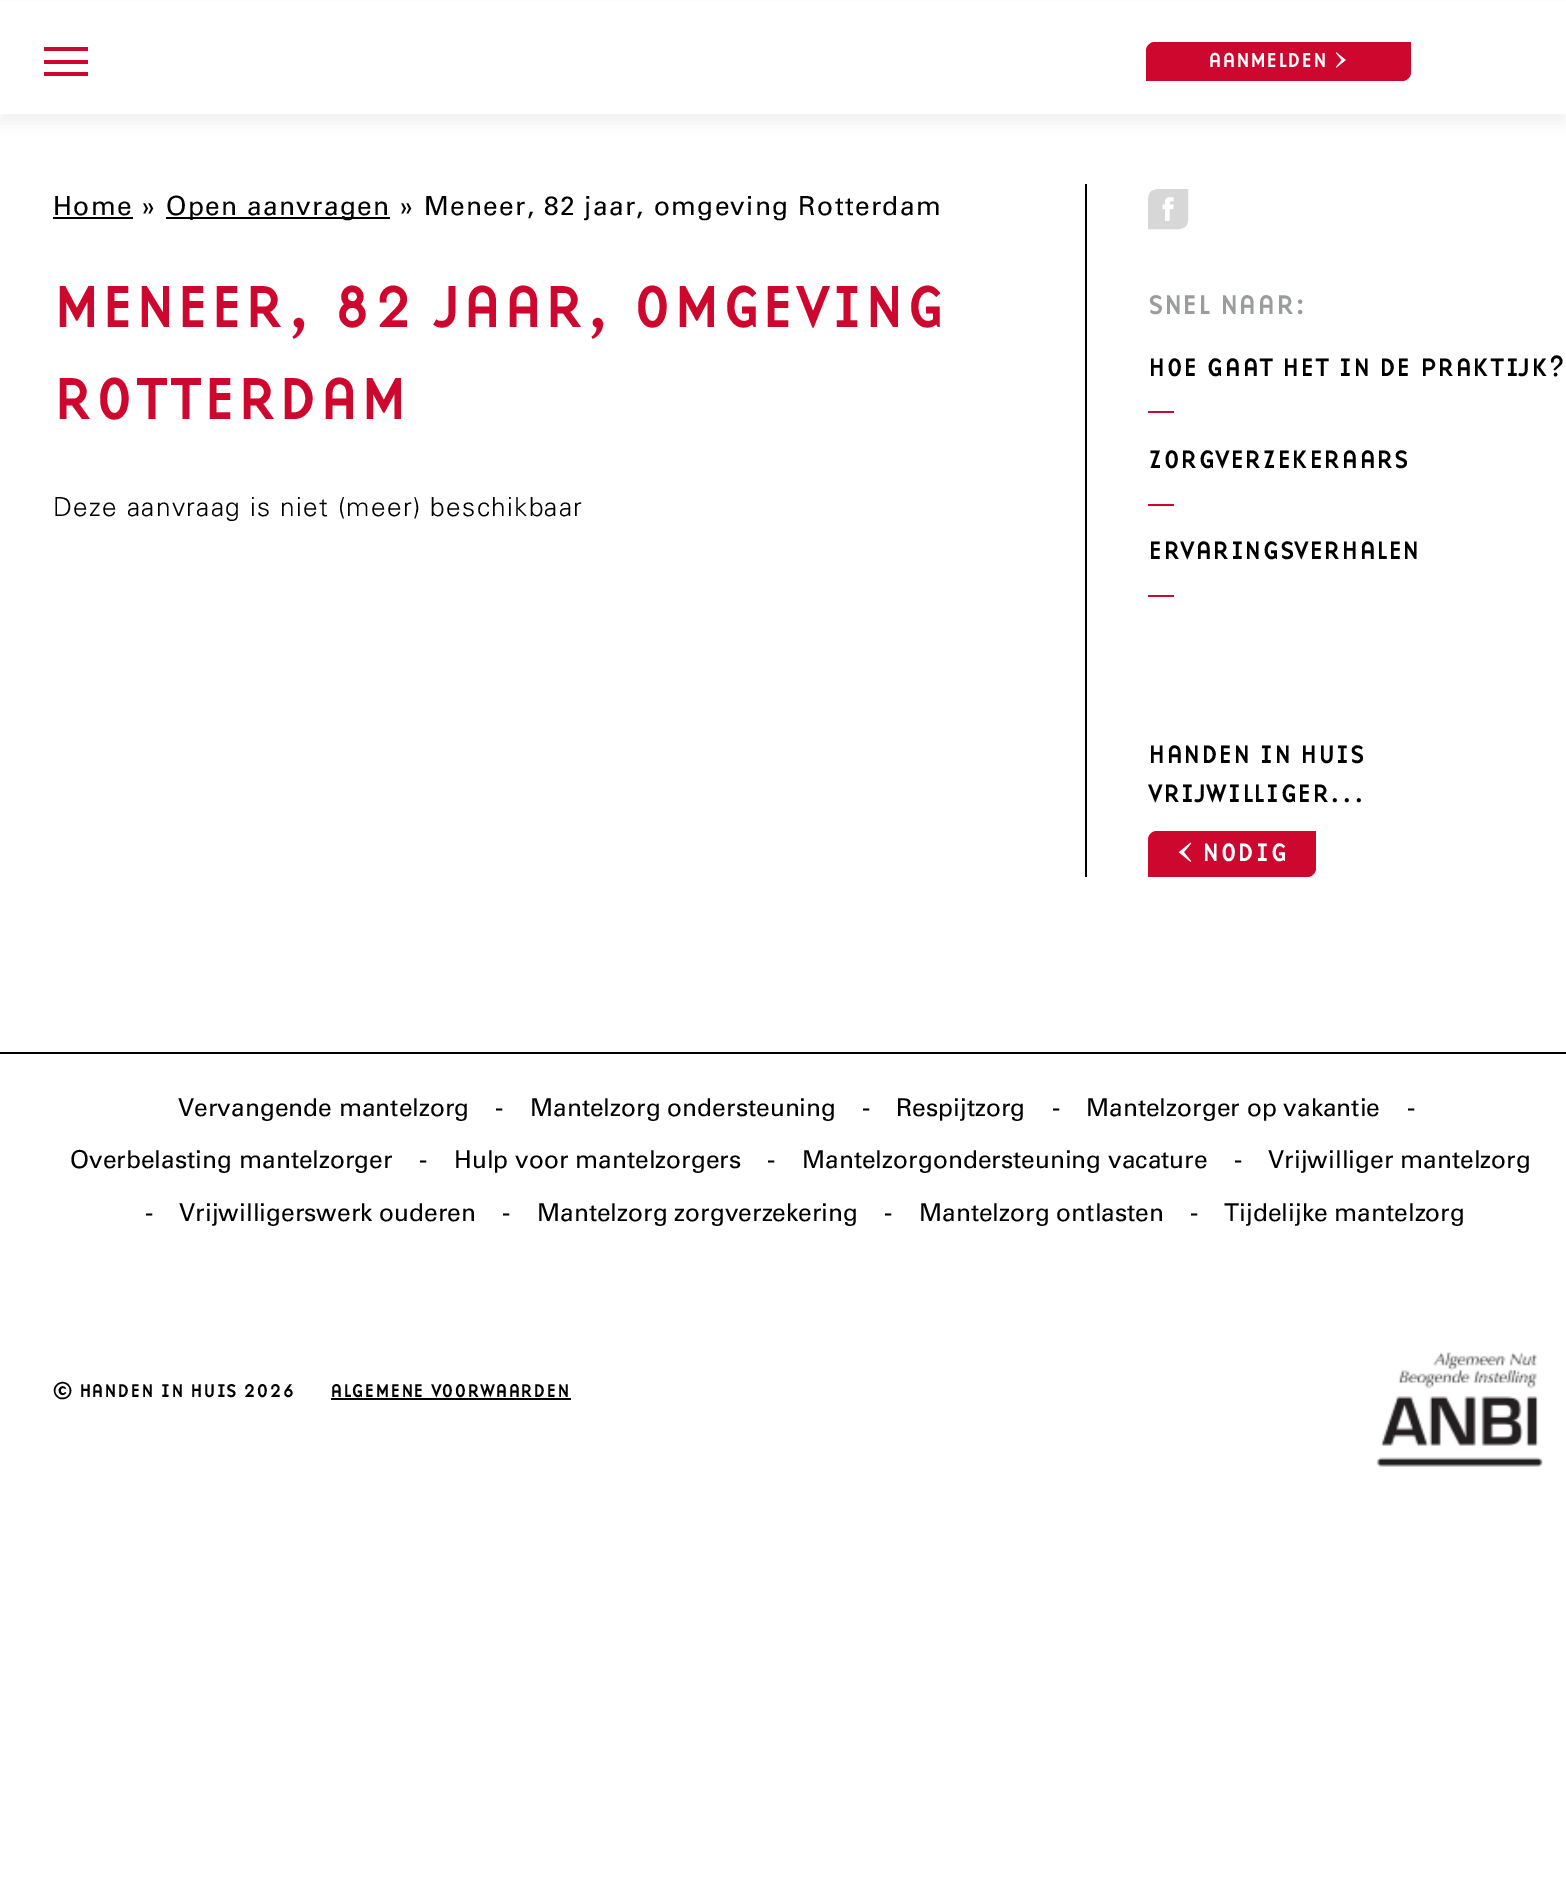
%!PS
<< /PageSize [1566 1904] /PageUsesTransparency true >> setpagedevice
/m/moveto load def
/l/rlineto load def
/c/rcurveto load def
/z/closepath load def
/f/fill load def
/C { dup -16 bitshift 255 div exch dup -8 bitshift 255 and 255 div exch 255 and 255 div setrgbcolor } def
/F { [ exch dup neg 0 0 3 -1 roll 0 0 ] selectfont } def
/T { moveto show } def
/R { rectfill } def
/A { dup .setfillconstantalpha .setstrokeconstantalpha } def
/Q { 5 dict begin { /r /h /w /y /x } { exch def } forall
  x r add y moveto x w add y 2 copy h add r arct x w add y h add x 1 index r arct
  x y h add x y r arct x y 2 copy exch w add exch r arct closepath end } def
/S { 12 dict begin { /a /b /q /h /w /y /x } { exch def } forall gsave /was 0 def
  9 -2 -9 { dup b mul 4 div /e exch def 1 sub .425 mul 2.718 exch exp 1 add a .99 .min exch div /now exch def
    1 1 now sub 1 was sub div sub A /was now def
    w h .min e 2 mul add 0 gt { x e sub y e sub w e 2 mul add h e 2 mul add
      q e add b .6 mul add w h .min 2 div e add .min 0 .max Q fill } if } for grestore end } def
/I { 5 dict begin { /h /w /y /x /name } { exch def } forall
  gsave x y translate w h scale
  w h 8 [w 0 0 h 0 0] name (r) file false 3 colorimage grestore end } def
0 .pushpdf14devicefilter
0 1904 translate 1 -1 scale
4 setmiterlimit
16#FFFFFF C
0 0 1566 1904 R
16#000000 C
0 9 1566 114 0 8 .05 S
16#FFFFFF C
0 2 1566 112 R
16#CD072D C
44 47 44 4 R
44 60 44 4 R
44 72 44 4 R
1155 42 m 256 0 l 0 30 l 0 5 -4 9 -9 9 c -256 0 l 0 -30 l 0 -5 4 -9 9 -9 c z f
/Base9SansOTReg-Regular 21 F
16#FFFFFF C
(AANMELDEN >) 1208 67 T
/Univers-Regular 26.3 F
16#000000 C
53 215 m 1.32 0 (Home ») ashow
53 217 80 2 R
166 217 224 2 R
166 215 m 1.32 0 (Open aanvragen » Meneer, 82 jaar, omgeving Rotterdam) ashow
/Base9SansOTReg-Regular 61.3 F
16#CD072D C
(MENEER, 82 JAAR, OMGEVING) 53 327 T
(ROTTERDAM) 53 419 T
/Univers-Light 26.3 F
16#000000 C
53 516 m 1.32 0 (Deze aanvraag is niet \(meer\) beschikbaar) ashow
1085 184 2 693 R
(1.rgb) 1148 189 41 41 I
/Base9SansOTReg-Regular 28 F
16#9B9C9C C
(SNEL NAAR:) 1148 314 T
/Base9SansOTReg-Regular 26.3 F
16#000000 C
(HOE GAAT HET IN DE PRAKTIJK?) 1148 376 T
16#CD072D C
1148 411 26 2 R
16#000000 C
(ZORGVERZEKERAARS) 1148 468 T
16#CD072D C
1148 504 26 2 R
16#000000 C
(ERVARINGSVERHALEN) 1148 559 T
16#CD072D C
1148 595 26 2 R
16#000000 C
(HANDEN IN HUIS) 1148 763 T
(VRIJWILLIGER...) 1148 802 T
16#CD072D C
1157 831 m 159 0 l 0 37 l 0 5 -4 9 -9 9 c -159 0 l 0 -37 l 0 -5 4 -9 9 -9 c z f
16#FFFFFF C
(< NODIG) 1176 861 T
16#000000 C
0 1052 1566 2 R
/Univers-Regular 24.5 F
(Vervangende mantelzorg) 178 1116 T
(-) 495 1116 T
(Mantelzorg ondersteuning) 530 1116 T
(-) 862 1116 T
(Respijtzorg) 896 1116 T
(-) 1052 1116 T
(Mantelzorger op vakantie) 1086 1116 T
(-) 1407 1116 T
(Overbelasting mantelzorger) 70 1168 T
(-) 419 1168 T
(Hulp voor mantelzorgers) 454 1168 T
(-) 767 1168 T
(Mantelzorgondersteuning vacature) 802 1168 T
(-) 1234 1168 T
(Vrijwilliger mantelzorg) 1268 1168 T
(-) 145 1221 T
(Vrijwilligerswerk ouderen) 179 1221 T
(-) 502 1221 T
(Mantelzorg zorgverzekering) 537 1221 T
(-) 884 1221 T
(Mantelzorg ontlasten) 919 1221 T
(-) 1190 1221 T
(Tijdelijke mantelzorg) 1224 1221 T
/Base9SansOTReg-Regular 19.25 F
(© HANDEN IN HUIS 2026) 53 1397 T
(ALGEMENE VOORWAARDEN) 330 1397 T
331 1398 240 2 R
(2.rgb) 1376 1352 167 115 I
.poppdf14devicefilter showpage
